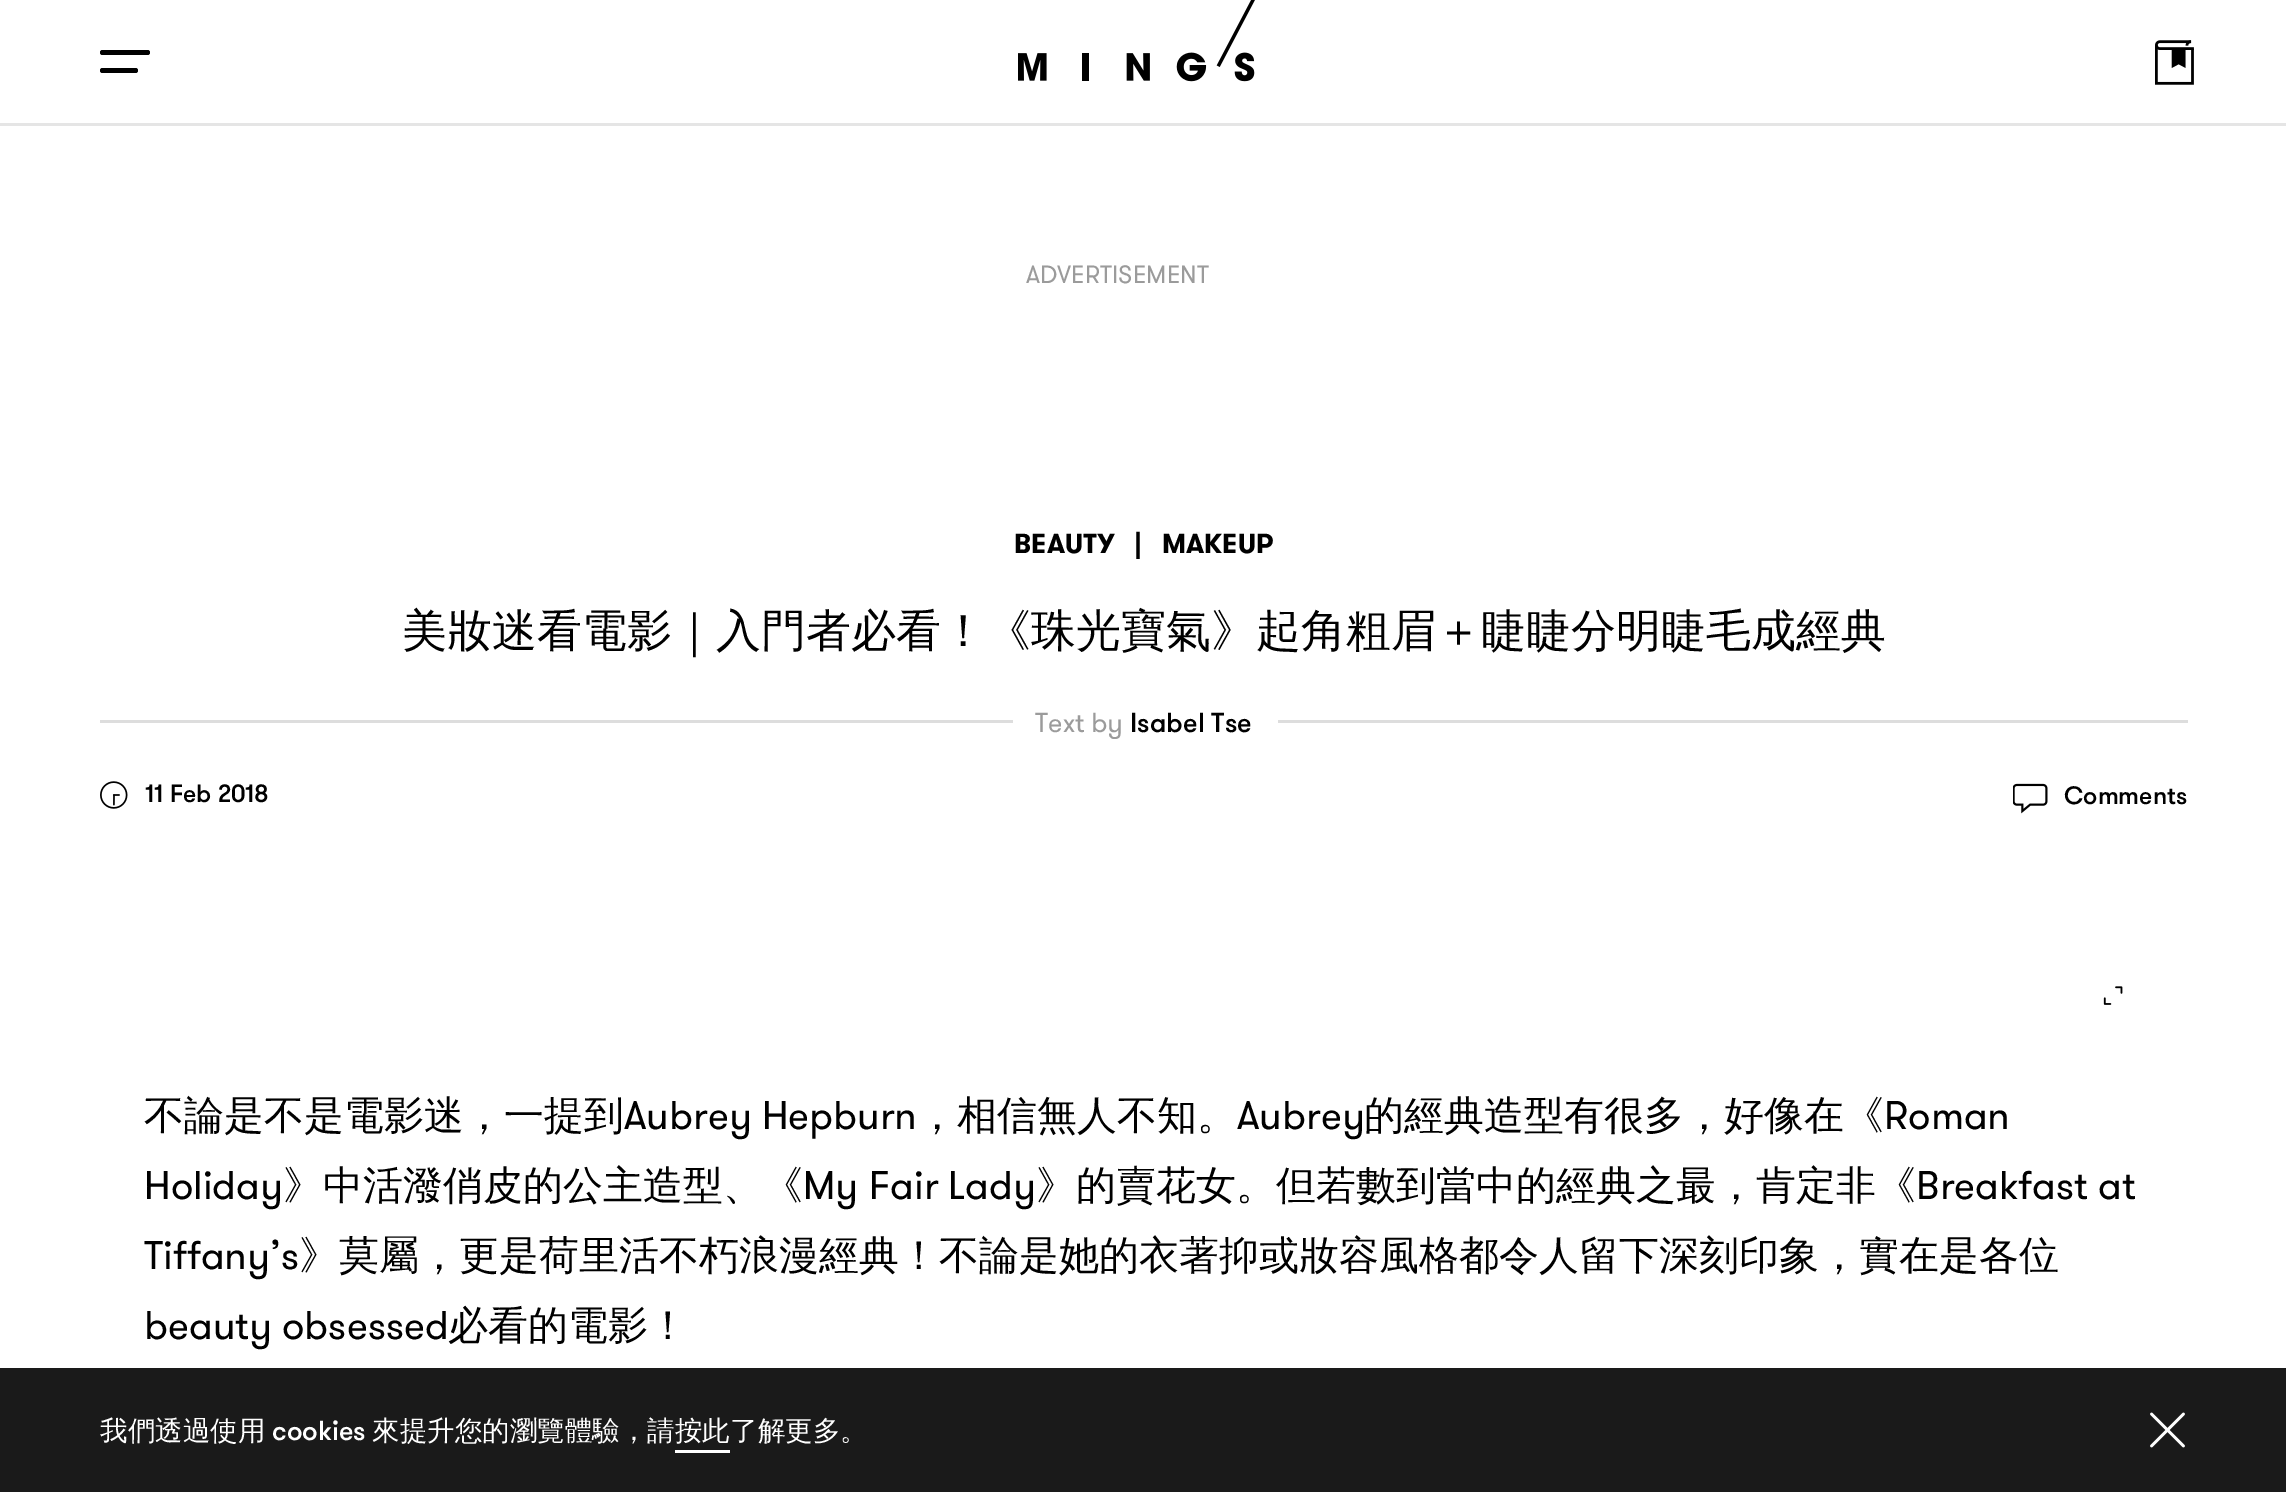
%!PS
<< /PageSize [2286 1492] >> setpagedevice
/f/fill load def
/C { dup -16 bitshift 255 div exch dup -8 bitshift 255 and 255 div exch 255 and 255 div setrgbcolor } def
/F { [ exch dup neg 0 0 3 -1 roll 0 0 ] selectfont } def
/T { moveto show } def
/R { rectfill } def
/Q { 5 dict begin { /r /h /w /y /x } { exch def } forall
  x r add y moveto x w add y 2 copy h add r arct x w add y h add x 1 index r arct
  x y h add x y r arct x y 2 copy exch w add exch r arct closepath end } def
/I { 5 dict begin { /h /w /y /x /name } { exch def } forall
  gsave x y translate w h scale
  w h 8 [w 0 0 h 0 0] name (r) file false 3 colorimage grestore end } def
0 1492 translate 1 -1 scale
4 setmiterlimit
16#FFFFFF C
0 0 2286 1492 R
16#E5E5E5 C
0 123 2286 3 R
16#000000 C
100 50 50 5 2.5 Q f
100 68 38 5 2.5 Q f
(1.rgb) 1018 0 237 82 I
(2.rgb) 2155 40 39 45 I
/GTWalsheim-Regular 25 F
16#9B9B9B C
(ADVERTISEMENT) 1026 283 T
16#DDDDDD C
100 720 2088 3 R
/GTWalsheim-Bold 27.5 F
16#000000 C
(BEAUTY) 1014 553 T
(|) 1134 553 T
(MAKEUP) 1162 553 T
/WenQuanYiZenHei-Medium 45 F
(美妝迷看電影｜入門者必看！《珠光寶氣》起角粗眉＋睫睫分明睫毛成經典) 402 646 T
16#FFFFFF C
1013 720 265 3 R
/GTWalsheim-Regular 27.5 F
16#9B9B9B C
(Text by) 1035 732 T
/GTWalsheim-Medium 27.5 F
16#000000 C
(Isabel Tse) 1130 732 T
(3.rgb) 100 781 28 28 I
/GTWalsheim-Medium 25 F
(11 Feb 2018) 145 802 T
(4.rgb) 2013 783 35 31 I
(Comments) 2064 804 T
(5.rgb) 2103 986 20 19 I
/WenQuanYiZenHei-Medium 40 F
(不論是不是電影迷，一提到) 144 1129 T
/GTWalsheim-Regular 40 F
(Aubrey Hepburn) 624 1129 T
/WenQuanYiZenHei-Medium 40 F
(，相信無人不知。) 917 1129 T
/GTWalsheim-Regular 40 F
(Aubrey) 1237 1129 T
/WenQuanYiZenHei-Medium 40 F
(的經典造型有很多，好像在《) 1364 1129 T
/GTWalsheim-Regular 40 F
(Roman) 1884 1129 T
(Holiday) 144 1199 T
/WenQuanYiZenHei-Medium 40 F
(》中活潑俏皮的公主造型、《) 283 1199 T
/GTWalsheim-Regular 40 F
(My Fair Lady) 803 1199 T
/WenQuanYiZenHei-Medium 40 F
(》的賣花女。但若數到當中的經典之最，肯定非《) 1036 1199 T
/GTWalsheim-Regular 40 F
(Breakfast at) 1916 1199 T
(Tiffany’s) 144 1269 T
/WenQuanYiZenHei-Medium 40 F
(》莫屬，更是荷里活不朽浪漫經典！不論是她的衣著抑或妝容風格都令人留下深刻印象，實在是各位) 299 1269 T
/GTWalsheim-Regular 40 F
(beauty obsessed) 144 1339 T
/WenQuanYiZenHei-Medium 40 F
(必看的電影！) 448 1339 T
16#1A1A1A C
0 1368 2286 124 R
/WenQuanYiZenHei-Medium 27.5 F
16#FFFFFF C
(我們透過使用) 100 1440 T
/GTWalsheim-Medium 27.5 F
(cookies) 272 1440 T
/WenQuanYiZenHei-Medium 27.5 F
(來提升您的瀏覽體驗，請按此) 372 1440 T
(了解更多。) 730 1440 T
675 1450 55 3 R
(6.rgb) 2150 1412 35 36 I
showpage
